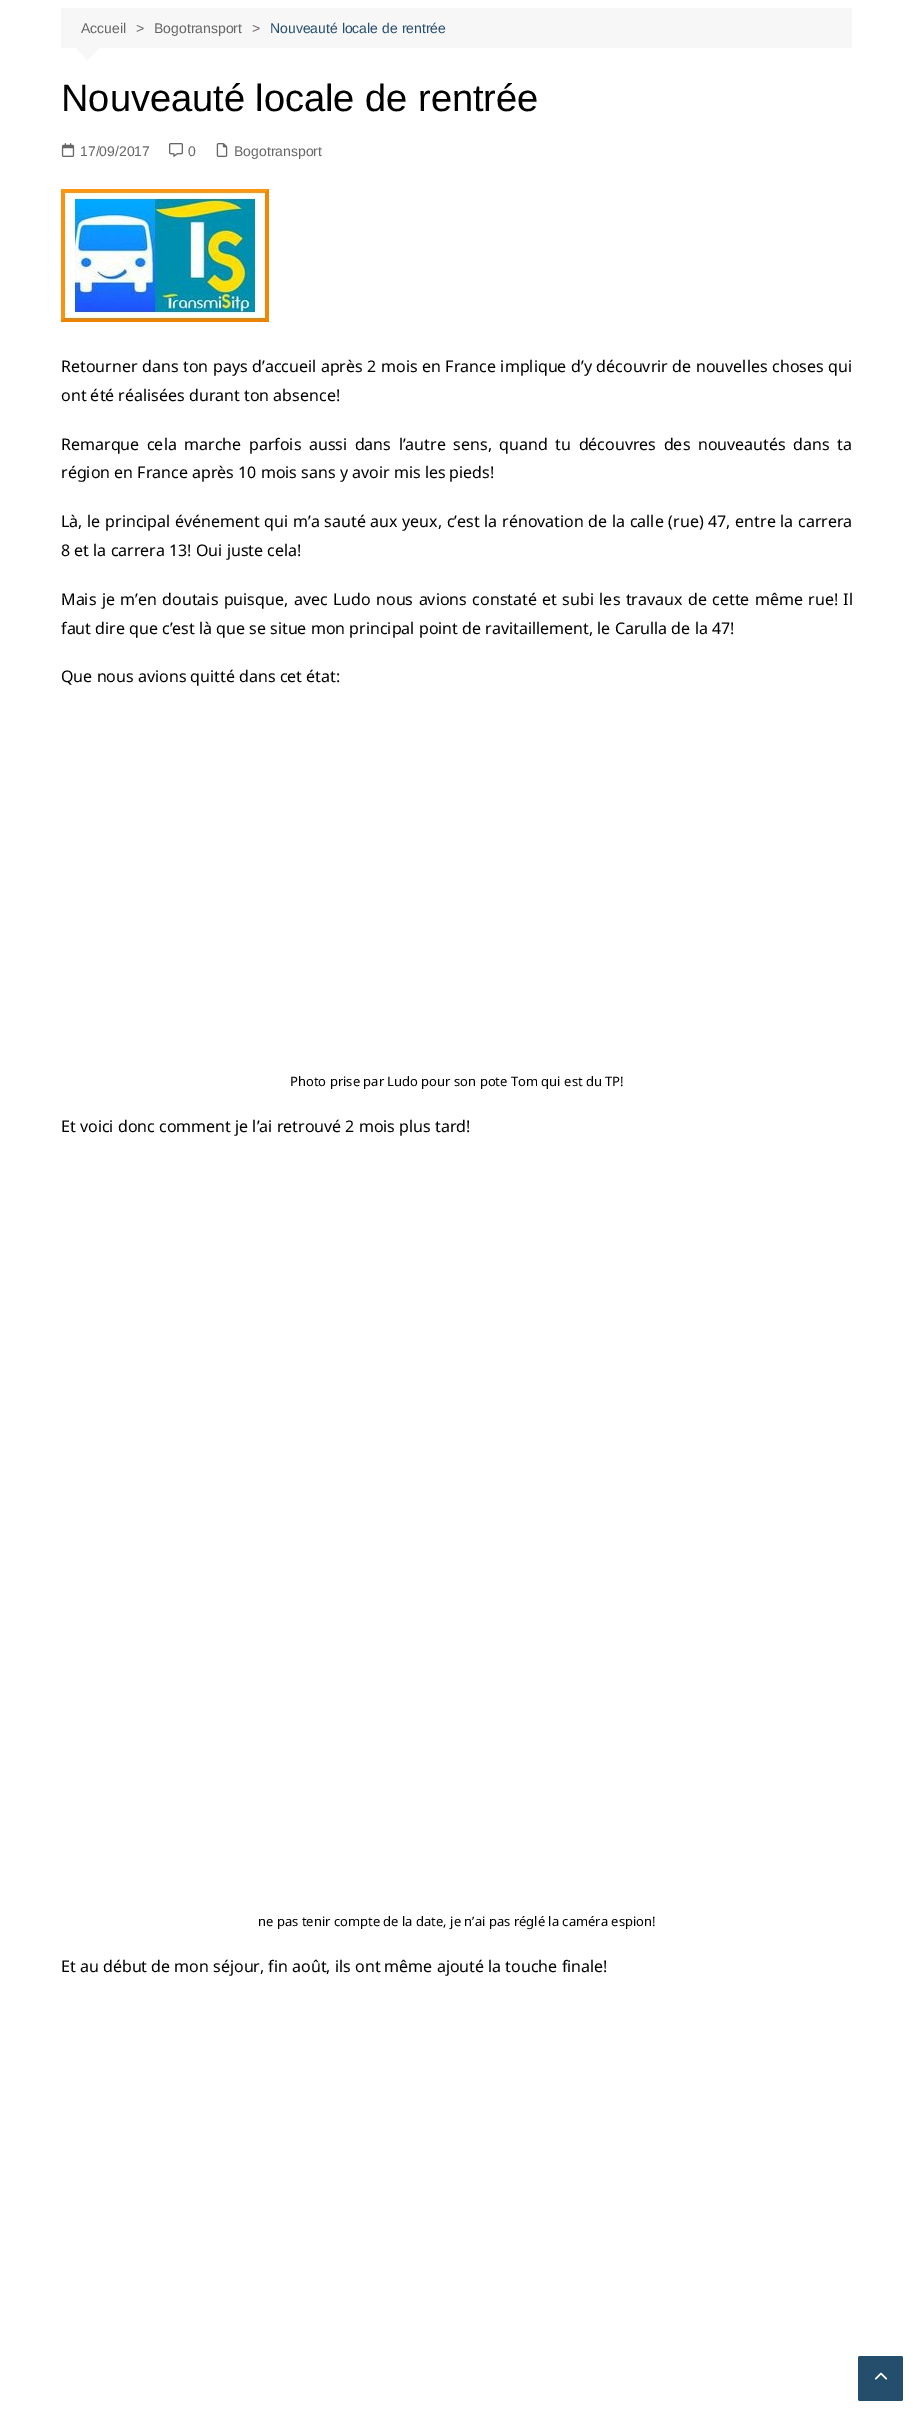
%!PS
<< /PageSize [913 2411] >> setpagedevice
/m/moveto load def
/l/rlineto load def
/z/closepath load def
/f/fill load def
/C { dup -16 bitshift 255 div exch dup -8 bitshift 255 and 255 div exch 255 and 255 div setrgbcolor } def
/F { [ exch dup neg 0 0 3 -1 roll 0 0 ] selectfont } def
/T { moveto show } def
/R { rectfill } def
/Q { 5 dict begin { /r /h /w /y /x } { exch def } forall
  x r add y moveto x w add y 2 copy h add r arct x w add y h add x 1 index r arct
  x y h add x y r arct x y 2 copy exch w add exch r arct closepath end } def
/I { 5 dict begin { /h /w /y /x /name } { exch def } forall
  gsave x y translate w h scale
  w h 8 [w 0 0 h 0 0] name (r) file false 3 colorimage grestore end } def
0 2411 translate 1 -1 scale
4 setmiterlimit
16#FFFFFF C
0 0 913 2411 R
16#F7F7F7 C
61 8 791 40 R
/LiberationSans-Regular 14 F
16#666666 C
(Accueil) 81 33 T
(>) 136 33 T
(Bogotransport) 154 33 T
(>) 252 33 T
16#254E6D C
(Nouveauté locale de rentrée) 270 33 T
16#F7F7F7 C
75.5 47.5 m 24 0 l -12 13 l z f
/LiberationSans-Regular 38 F
16#010101 C
(Nouveauté locale de rentrée) 61 111 T
(1.rgb) 61 143 14 14 I
/LiberationSans-Regular 14 F
16#666666 C
(17/09/2017) 80 156 T
(2.rgb) 169 143 14 14 I
(0) 188 156 T
(3.rgb) 216 143 12 14 I
(Bogotransport) 234 156 T
(4.rgb) 61 189 208 133 I
/NotoSans-Regular 16 F
16#010101 C
61 372 m .4 0 32 (Retourner dans ton pays d’accueil après 2 mois en France implique d’y découvrir de nouvelles choses qui) widthshow
(ont été réalisées durant ton absence!) 61 401 T
61 450 m 3.4 0 32 (Remarque cela marche parfois aussi dans l’autre sens, quand tu découvres des nouveautés dans ta) widthshow
(région en France après 10 mois sans y avoir mis les pieds!) 61 478 T
61 527 m .5 0 32 (Là, le principal événement qui m’a sauté aux yeux, c’est la rénovation de la calle \(rue\) 47, entre la carrera) widthshow
(8 et la carrera 13! Oui juste cela!) 61 556 T
61 605 m 1.25 0 32 (Mais je m’en doutais puisque, avec Ludo nous avions constaté et subi les travaux de cette même rue! Il) widthshow
(faut dire que c’est là que se situe mon principal point de ravitaillement, le Carulla de la 47!) 61 634 T
(Que nous avions quitté dans cet état:) 61 682 T
/NotoSans-Regular 13 F
(Photo prise par Ludo pour son pote Tom qui est du TP!) 290 1086 T
/NotoSans-Regular 16 F
(Et voici donc comment je l’ai retrouvé 2 mois plus tard!) 61 1132 T
/NotoSans-Regular 13 F
(ne pas tenir compte de la date, je n’ai pas réglé la caméra espion!) 258 1926 T
/NotoSans-Regular 16 F
(Et au début de mon séjour, fin août, ils ont même ajouté la touche finale!) 61 1972 T
16#254E6D C
858 2356 45 45 2 Q f
(5.rgb) 874 2372 14 8 I
showpage
